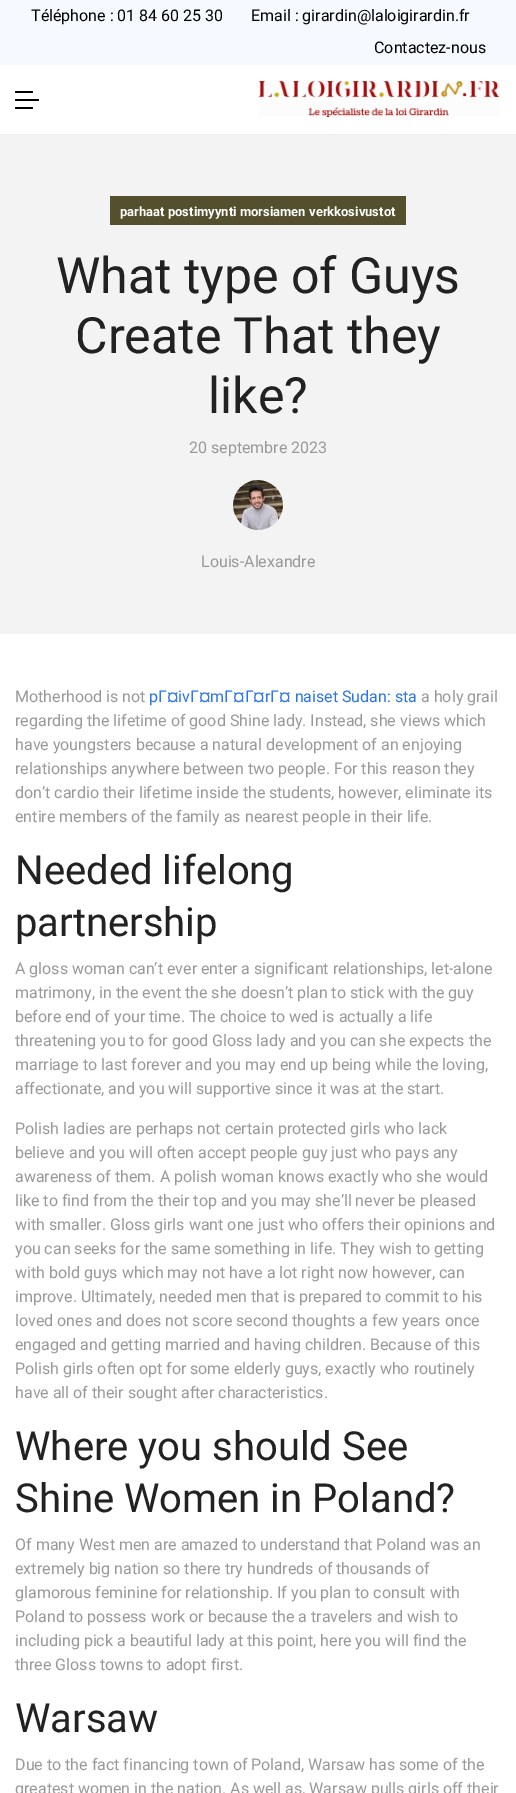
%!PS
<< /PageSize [516 1793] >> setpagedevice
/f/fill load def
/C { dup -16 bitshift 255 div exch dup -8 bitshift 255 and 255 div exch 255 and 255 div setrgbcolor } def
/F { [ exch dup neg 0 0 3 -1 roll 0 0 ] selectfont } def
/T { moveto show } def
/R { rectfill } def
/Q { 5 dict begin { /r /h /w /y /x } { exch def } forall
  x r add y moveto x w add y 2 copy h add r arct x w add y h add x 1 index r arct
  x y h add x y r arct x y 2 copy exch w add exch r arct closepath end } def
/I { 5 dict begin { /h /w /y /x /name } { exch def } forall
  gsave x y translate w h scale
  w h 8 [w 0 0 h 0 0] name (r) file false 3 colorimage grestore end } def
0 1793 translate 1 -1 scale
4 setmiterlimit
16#FFFFFF C
0 0 516 1793 R
16#F6F9FF C
0 0 516 65 R
/Roboto-Regular 16 F
16#000000 C
(Téléphone : 01 84 60 25 30) 31 21 T
(Email : girardin@laloigirardin.fr) 251 21 T
(Contactez-nous) 374 53 T
16#EEEEEE C
0 134 516 1 R
16#000000 C
15 99 24 2 1 Q f
15 91 18 2 1 Q f
15 107 18 2 1 Q f
(1.rgb) 258 80 242 37 I
16#F3F3F3 C
0 135 516 499 R
16#54502D C
110 196 296 29 R
/Roboto-Bold 13 F
16#FFFFFF C
(parhaat postimyynti morsiamen verkkosivustot) 120 216 T
/Roboto-Regular 50 F
16#222222 C
(What type of Guys) 56 293 T
(Create That they) 75 353 T
(like?) 208 413 T
/Roboto-Regular 16 F
16#999999 C
(20 septembre 2023) 189 453 T
(2.rgb) 233 480 50 50 I
(Louis-Alexandre) 201 567 T
(Motherhood is not) 15 702 T
16#2A74ED C
(pГ¤ivГ¤mГ¤Г¤rГ¤ naiset Sudan: sta) 149 702 T
16#999999 C
(a holy grail) 421 702 T
(regarding the lifetime of good Shine lady. Instead, she views which) 15 726 T
(have youngsters because a natural development of an enjoying) 15 750 T
(relationships anywhere between two people. For this reason they) 15 774 T
(don’t cardio their lifetime inside the students, however, eliminate its) 15 798 T
(entire members of the family as nearest people in their life.) 15 822 T
/Roboto-Regular 40 F
16#222222 C
(Needed lifelong) 15 884 T
(partnership) 15 936 T
/Roboto-Regular 16 F
16#999999 C
(A gloss woman can’t ever enter a significant relationships, let-alone) 15 974 T
(matrimony, in the event the she doesn’t plan to stick with the guy) 15 998 T
(before end of your time. The choice to wed is actually a life) 15 1022 T
(threatening you to for good Gloss lady and you can she expects the) 15 1046 T
(marriage to last forever and you may end up being while the loving,) 15 1070 T
(affectionate, and you will supportive since it was at the start.) 15 1094 T
(Polish ladies are perhaps not certain protected girls who lack) 15 1134 T
(believe and you will often accept people guy just who pays any) 15 1158 T
(awareness of them. A polish woman knows exactly who she would) 15 1182 T
(like to find from the their top and you may she’ll never be pleased) 15 1206 T
(with smaller. Gloss girls want one just who offers their opinions and) 15 1230 T
(you can seeks for the same something in life. They wish to getting) 15 1254 T
(with bold guys which may not have a lot right now however, can) 15 1278 T
(improve. Ultimately, needed men that is prepared to commit to his) 15 1302 T
(loved ones and does not score second thoughts a few years once) 15 1326 T
(engaged and getting married and having children. Because of this) 15 1350 T
(Polish girls often opt for some elderly guys, exactly who routinely) 15 1374 T
(have all of their sought after characteristics.) 15 1398 T
/Roboto-Regular 40 F
16#222222 C
(Where you should See) 15 1460 T
(Shine Women in Poland?) 15 1512 T
/Roboto-Regular 16 F
16#999999 C
(Of many West men are amazed to understand that Poland was an) 15 1550 T
(extremely big nation so there try hundreds of thousands of) 15 1574 T
(glamorous feminine for relationship. If you plan to consult with) 15 1598 T
(Poland to possess work or because the a travelers and wish to) 15 1622 T
(including pick a beautiful lady at this point, here you will find the) 15 1646 T
(three Gloss towns to adopt first.) 15 1670 T
/Roboto-Regular 40 F
16#222222 C
(Warsaw) 15 1732 T
/Roboto-Regular 16 F
16#999999 C
(Due to the fact financing town of Poland, Warsaw has some of the) 15 1770 T
(greatest women in the nation. As well as, Warsaw pulls girls off their) 15 1794 T
showpage
